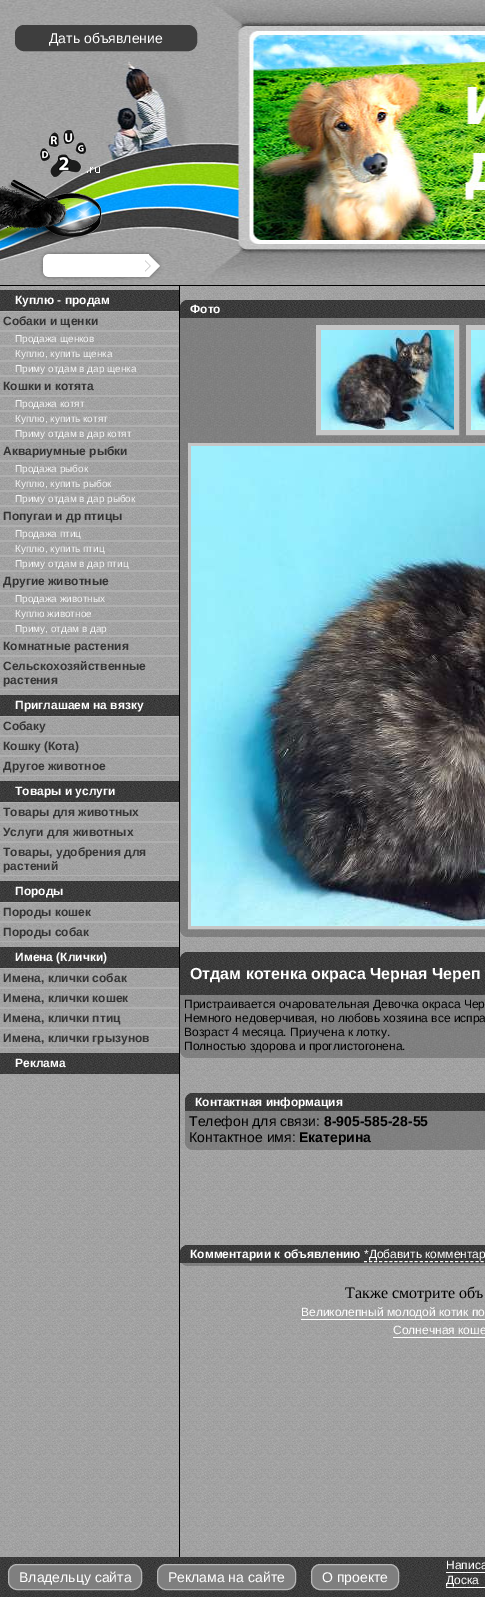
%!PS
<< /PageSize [485 1597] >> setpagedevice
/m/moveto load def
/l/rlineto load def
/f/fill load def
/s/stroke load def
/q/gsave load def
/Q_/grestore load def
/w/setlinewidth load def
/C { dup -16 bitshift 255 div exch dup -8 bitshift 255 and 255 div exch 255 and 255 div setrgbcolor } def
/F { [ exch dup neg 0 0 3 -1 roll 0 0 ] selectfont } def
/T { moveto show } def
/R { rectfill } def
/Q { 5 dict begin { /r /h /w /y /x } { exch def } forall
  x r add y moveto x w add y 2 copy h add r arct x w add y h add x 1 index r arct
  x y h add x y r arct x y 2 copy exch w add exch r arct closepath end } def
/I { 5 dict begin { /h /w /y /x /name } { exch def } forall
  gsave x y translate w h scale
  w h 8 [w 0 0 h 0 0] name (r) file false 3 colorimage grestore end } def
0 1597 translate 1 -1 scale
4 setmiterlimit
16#FFFFFF C
0 0 485 1597 R
(1.rgb) 0 286 485 1271 I
16#000000 C
0 285 485 1 R
(2.rgb) 0 0 485 285 I
16#3E3E3E C
15.5 25.5 181 25 8.5 Q q f Q_
s
/LiberationSans-Regular 14 F
16#FFFFFF C
(Дать объявление) 49 43 T
(3.rgb) 40 130 60 47 I
(4.rgb) 0 179 162 101 I
45 255 77 21 R
16#000000 C
179 286 1 1271 R
(5.rgb) 0 290 179 21 I
/LiberationSans-Bold 12 F
16#FFFFFF C
(Куплю - продам) 15 304 T
16#AFAFAF C
0 311 179 1 R
0 330 179 2 R
16#343434 C
(Собаки и щенки) 3 325 T
16#AFAFAF C
0 345 179 2 R
/LiberationSans-Regular 10 F
16#F6F6F6 C
(Продажа щенков) 15 342 T
16#AFAFAF C
0 360 179 2 R
16#F6F6F6 C
(Куплю, купить щенка) 15 357 T
16#AFAFAF C
0 375 179 2 R
16#F6F6F6 C
(Приму отдам в дар щенка) 15 372 T
16#AFAFAF C
0 395 179 2 R
/LiberationSans-Bold 12 F
16#343434 C
(Кошки и котята) 3 390 T
16#AFAFAF C
0 410 179 2 R
/LiberationSans-Regular 10 F
16#F6F6F6 C
(Продажа котят) 15 407 T
16#AFAFAF C
0 425 179 2 R
16#F6F6F6 C
(Куплю, купить котят) 15 422 T
16#AFAFAF C
0 440 179 2 R
16#F6F6F6 C
(Приму отдам в дар котят) 15 437 T
16#AFAFAF C
0 460 179 2 R
/LiberationSans-Bold 12 F
16#343434 C
(Аквариумные рыбки) 3 455 T
16#AFAFAF C
0 475 179 2 R
/LiberationSans-Regular 10 F
16#F6F6F6 C
(Продажа рыбок) 15 472 T
16#AFAFAF C
0 490 179 2 R
16#F6F6F6 C
(Куплю, купить рыбок) 15 487 T
16#AFAFAF C
0 505 179 2 R
16#F6F6F6 C
(Приму отдам в дар рыбок) 15 502 T
16#AFAFAF C
0 525 179 2 R
/LiberationSans-Bold 12 F
16#343434 C
(Попугаи и др птицы) 3 520 T
16#AFAFAF C
0 540 179 2 R
/LiberationSans-Regular 10 F
16#F6F6F6 C
(Продажа птиц) 15 537 T
16#AFAFAF C
0 555 179 2 R
16#F6F6F6 C
(Куплю, купить птиц) 15 552 T
16#AFAFAF C
0 570 179 2 R
16#F6F6F6 C
(Приму отдам в дар птиц) 15 567 T
16#AFAFAF C
0 590 179 2 R
/LiberationSans-Bold 12 F
16#343434 C
(Другие животные) 3 585 T
16#AFAFAF C
0 605 179 2 R
/LiberationSans-Regular 10 F
16#F6F6F6 C
(Продажа животных) 15 602 T
16#AFAFAF C
0 620 179 2 R
16#F6F6F6 C
(Куплю животное) 15 617 T
16#AFAFAF C
0 635 179 2 R
16#F6F6F6 C
(Приму, отдам в дар) 15 632 T
16#AFAFAF C
0 655 179 2 R
/LiberationSans-Bold 12 F
16#343434 C
(Комнатные растения) 3 650 T
16#AFAFAF C
0 689 179 1 R
16#343434 C
(Сельскохозяйственные) 3 670 T
(растения) 3 684 T
(5.rgb) 0 695 179 21 I
16#FFFFFF C
(Приглашаем на вязку) 15 709 T
16#AFAFAF C
0 716 179 1 R
0 735 179 2 R
16#343434 C
(Собаку) 3 730 T
16#AFAFAF C
0 755 179 2 R
16#343434 C
(Кошку \(Кота\)) 3 750 T
16#AFAFAF C
0 775 179 1 R
16#343434 C
(Другое животное) 3 770 T
(5.rgb) 0 781 179 21 I
16#FFFFFF C
(Товары и услуги) 15 795 T
16#AFAFAF C
0 802 179 1 R
0 821 179 2 R
16#343434 C
(Товары для животных) 3 816 T
16#AFAFAF C
0 841 179 2 R
16#343434 C
(Услуги для животных) 3 836 T
16#AFAFAF C
0 875 179 1 R
16#343434 C
(Товары, удобрения для) 3 856 T
(растений) 3 870 T
(5.rgb) 0 881 179 21 I
16#FFFFFF C
(Породы) 15 895 T
16#AFAFAF C
0 902 179 1 R
0 921 179 2 R
16#343434 C
(Породы кошек) 3 916 T
16#AFAFAF C
0 941 179 1 R
16#343434 C
(Породы собак) 3 936 T
(5.rgb) 0 947 179 21 I
16#FFFFFF C
(Имена \(Клички\)) 15 961 T
16#AFAFAF C
0 968 179 1 R
0 987 179 2 R
16#343434 C
(Имена, клички собак) 3 982 T
16#AFAFAF C
0 1007 179 2 R
16#343434 C
(Имена, клички кошек) 3 1002 T
16#AFAFAF C
0 1027 179 2 R
16#343434 C
(Имена, клички птиц) 3 1022 T
16#AFAFAF C
0 1047 179 1 R
16#343434 C
(Имена, клички грызунов) 3 1042 T
(5.rgb) 0 1053 179 21 I
16#FFFFFF C
(Реклама) 15 1067 T
16#7F7F7F C
180 300 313 637 8 Q f
(6.rgb) 180 300 305 637 I
(7.rgb) 180 300 305 18 I
16#FFFFFF C
(Фото) 190 313 T
16#C6C6C6 C
5 w
318.5 327.5 138 105 rectstroke
468.5 327.5 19 105 rectstroke
(8.rgb) 321 330 133 100 I
(9.rgb) 471 330 14 100 I
3 w
189.5 444.5 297 483 rectstroke
(10.rgb) 191 446 294 480 I
16#7F7F7F C
180 952 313 106 8 Q f
(11.rgb) 180 952 305 106 I
(12.rgb) 180 952 305 43 I
/LiberationSans-Bold 16 F
16#FFFFFF C
(Отдам котенка окраса Черная Череп) 190 979 T
/LiberationSans-Regular 12 F
16#000000 C
(Пристраивается очаровательная Девочка окраса Чер) 184 1008 T
(Немного недоверчивая, но любовь хозяина все испра) 184 1022 T
(Возраст 4 месяца. Приучена к лотку.) 184 1036 T
(Полностью здорова и проглистогонена.) 184 1050 T
16#7F7F7F C
185 1093 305 57 8 Q f
(13.rgb) 185 1093 300 57 I
(14.rgb) 185 1093 300 18 I
/LiberationSans-Bold 12 F
16#FFFFFF C
(Контактная информация) 195 1106 T
/LiberationSans-Regular 14 F
16#000000 C
(Телефон для связи:) 189 1126 T
/LiberationSans-Bold 14 F
(8-905-585-28-55) 324 1126 T
/LiberationSans-Regular 14 F
(Контактное имя:) 189 1142 T
/LiberationSans-Bold 14 F
(Екатерина) 299 1142 T
(15.rgb) 180 1245 305 21 I
(16.rgb) 180 1245 305 18 I
/LiberationSans-Bold 12 F
16#FFFFFF C
(Комментарии к объявлению) 190 1258 T
/LiberationSans-Regular 12 F
(*Добавить комментар) 364 1258 T
1 w
[3 2.07] 0 setdash
364 1261.5 m 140 0 l s
/LiberationSerif-Regular 16 F
16#000000 C
(Также смотрите объ) 345 1298 T
/LiberationSans-Regular 12 F
16#FFFFFF C
(Великолепный молодой котик по) 301 1316 T
301 1319 184 1 R
(Солнечная коше) 393 1334 T
393 1337 92 1 R
(17.rgb) 0 1557 485 40 I
16#7F7F7F C
8.5 1564.5 133 25 8.5 Q q f Q_
16#B5B5B5 C
[] 0 setdash
s
/LiberationSans-Regular 14 F
16#FFFFFF C
(Владельцу сайта) 19 1582 T
16#7F7F7F C
157.5 1564.5 138 25 8.5 Q q f Q_
16#B5B5B5 C
s
16#FFFFFF C
(Реклама на сайте) 168 1582 T
16#7F7F7F C
311.5 1564.5 87 25 8.5 Q q f Q_
16#B5B5B5 C
s
16#FFFFFF C
(О проекте) 322 1582 T
/LiberationSans-Regular 12 F
(Написа) 446 1569 T
446 1572 39 1 R
(Доска) 446 1584 T
446 1587 39 1 R
showpage
